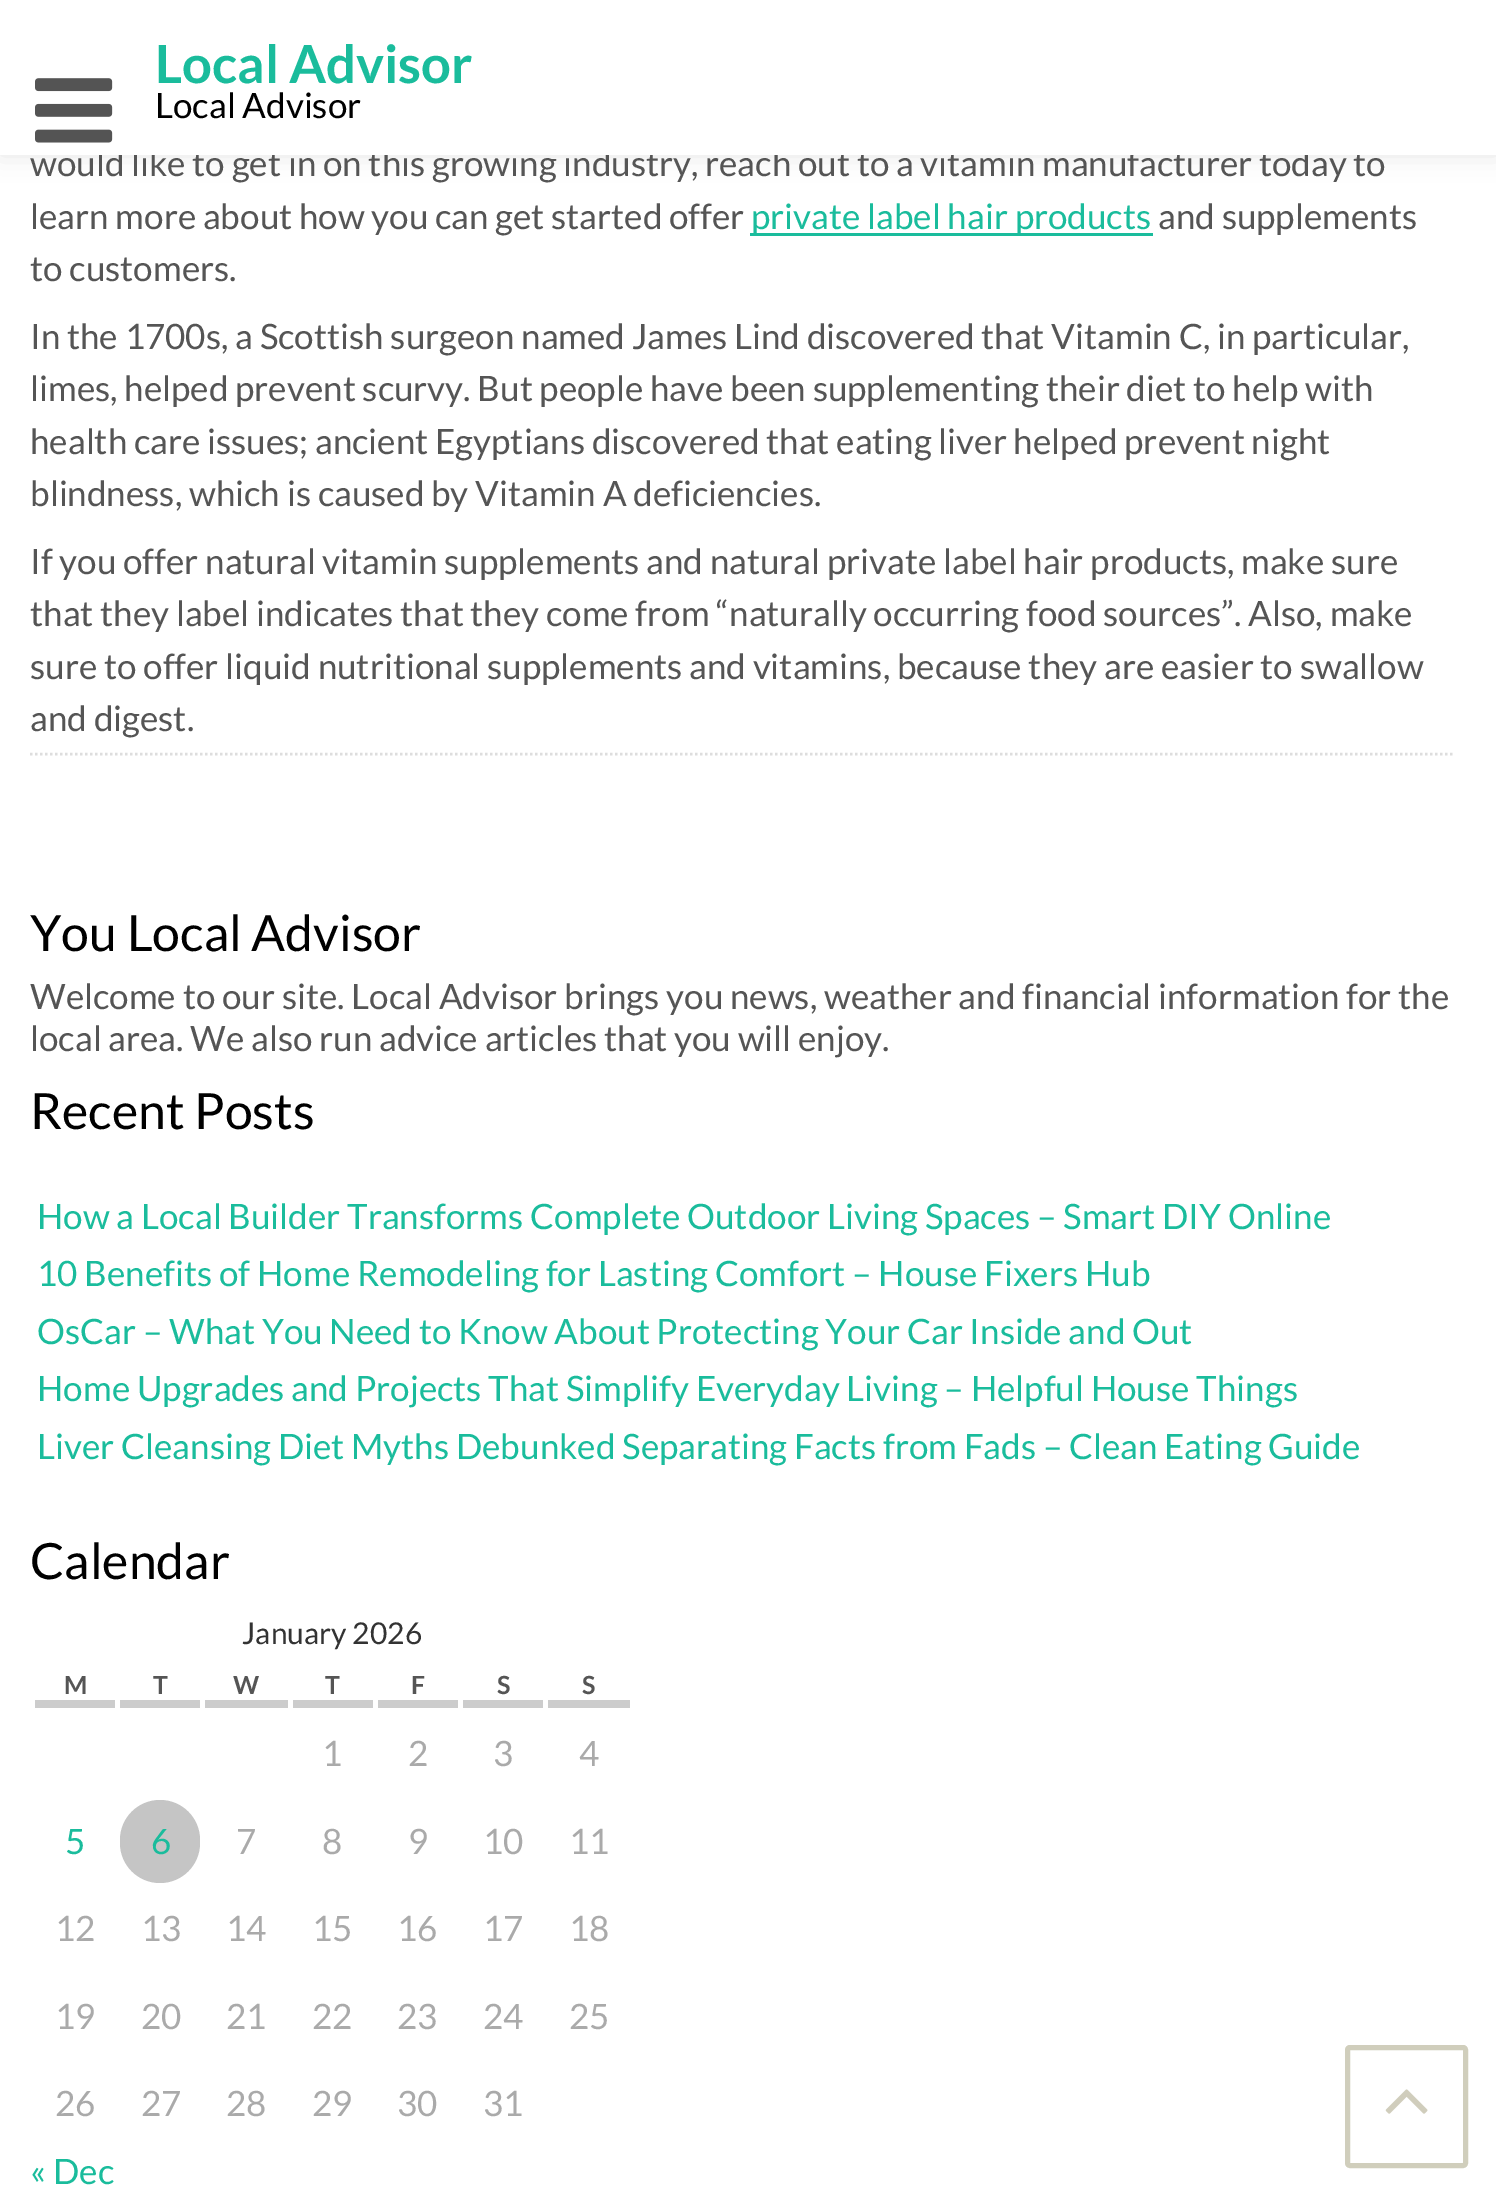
%!PS
<< /PageSize [1496 2204] /PageUsesTransparency true >> setpagedevice
/m/moveto load def
/l/rlineto load def
/f/fill load def
/s/stroke load def
/w/setlinewidth load def
/C { dup -16 bitshift 255 div exch dup -8 bitshift 255 and 255 div exch 255 and 255 div setrgbcolor } def
/F { [ exch dup neg 0 0 3 -1 roll 0 0 ] selectfont } def
/T { moveto show } def
/R { rectfill } def
/A { dup .setfillconstantalpha .setstrokeconstantalpha } def
/Q { 5 dict begin { /r /h /w /y /x } { exch def } forall
  x r add y moveto x w add y 2 copy h add r arct x w add y h add x 1 index r arct
  x y h add x y r arct x y 2 copy exch w add exch r arct closepath end } def
/S { 12 dict begin { /a /b /q /h /w /y /x } { exch def } forall gsave /was 0 def
  9 -2 -9 { dup b mul 4 div /e exch def 1 sub .425 mul 2.718 exch exp 1 add a .99 .min exch div /now exch def
    1 1 now sub 1 was sub div sub A /was now def
    w h .min e 2 mul add 0 gt { x e sub y e sub w e 2 mul add h e 2 mul add
      q e add b .6 mul add w h .min 2 div e add .min 0 .max Q fill } if } for grestore end } def
/I { 5 dict begin { /h /w /y /x /name } { exch def } forall
  gsave x y translate w h scale
  w h 8 [w 0 0 h 0 0] name (r) file false 3 colorimage grestore end } def
0 .pushpdf14devicefilter
0 2204 translate 1 -1 scale
4 setmiterlimit
16#FFFFFF C
0 0 1496 2204 R
16#000000 C
0 0 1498 155 0 12.5 .1 S
/Lato-Regular 35 F
16#555555 C
(would like to get in on this growing industry, reach out to a vitamin manufacturer today to) 30 176 T
16#FFFFFF C
0 0 1496 155 R
(1.rgb) 35 78 78 65 I
/Lato-Bold 52.5 F
16#1ABC9C C
(Local Advisor) 155 83 T
/Lato-Regular 35 F
16#000000 C
(Local Advisor) 155 118 T
16#555555 C
(learn more about how you can get started offer) 30 229 T
16#1ABC9C C
750 233 403 3 R
(private label hair products) 751 229 T
16#555555 C
(and supplements) 1158 229 T
(to customers.) 30 281 T
(In the 1700s, a Scottish surgeon named James Lind discovered that Vitamin C, in particular,) 30 349 T
(limes, helped prevent scurvy. But people have been supplementing their diet to help with) 30 401 T
(health care issues; ancient Egyptians discovered that eating liver helped prevent night) 30 454 T
(blindness, which is caused by Vitamin A deficiencies.) 30 506 T
(If you offer natural vitamin supplements and natural private label hair products, make sure) 30 574 T
(that they label indicates that they come from “naturally occurring food sources”. Also, make) 30 626 T
(sure to offer liquid nutritional supplements and vitamins, because they are easier to swallow) 30 679 T
(and digest.) 30 731 T
16#DDDDDD C
2.5 w
[2.5 2.5] 0 setdash
30 754 m 1422.5 0 l s
/Lato-Regular 50 F
16#000000 C
(You Local Advisor) 30 951 T
/Lato-Regular 35 F
16#555555 C
(Welcome to our site. Local Advisor brings you news, weather and financial information for the) 30 1009 T
(local area. We also run advice articles that you will enjoy.) 30 1051 T
/Lato-Regular 50 F
16#000000 C
(Recent Posts) 30 1129 T
/Lato-Regular 35 F
16#1ABC9C C
(How a Local Builder Transforms Complete Outdoor Living Spaces – Smart DIY Online) 37 1229 T
(10 Benefits of Home Remodeling for Lasting Comfort – House Fixers Hub) 37 1286 T
(OsCar – What You Need to Know About Protecting Your Car Inside and Out) 37 1344 T
(Home Upgrades and Projects That Simplify Everyday Living – Helpful House Things) 37 1401 T
(Liver Cleansing Diet Myths Debunked Separating Facts from Fads – Clean Eating Guide) 37 1459 T
/Lato-Regular 50 F
16#000000 C
(Calendar) 30 1579 T
/Lato-Regular 30 F
16#333333 C
(January 2026) 242 1644 T
16#CCCCCC C
35 1700 80 8 R
/Lato-Bold 25 F
16#555555 C
(M) 64 1694 T
16#CCCCCC C
120 1700 80 8 R
16#555555 C
(T) 153 1694 T
16#CCCCCC C
205 1700 83 8 R
16#555555 C
(W) 233 1694 T
16#CCCCCC C
293 1700 80 8 R
16#555555 C
(T) 325 1694 T
16#CCCCCC C
378 1700 80 8 R
16#555555 C
(F) 411 1694 T
16#CCCCCC C
463 1700 80 8 R
16#555555 C
(S) 497 1694 T
16#CCCCCC C
548 1700 82 8 R
16#555555 C
(S) 582 1694 T
/Lato-Regular 35 F
16#AAAAAA C
(1) 322 1766 T
(2) 408 1766 T
(3) 493 1766 T
(4) 579 1766 T
16#1ABC9C C
(5) 65 1854 T
16#C5C5C5 C
120 1800 80 83 40 Q f
16#1ABC9C C
(6) 151 1854 T
16#AAAAAA C
(7) 236 1854 T
(8) 322 1854 T
(9) 408 1854 T
(10) 483 1854 T
(11) 569 1854 T
(12) 55 1941 T
(13) 141 1941 T
(14) 226 1941 T
(15) 312 1941 T
(16) 397 1941 T
(17) 483 1941 T
(18) 569 1941 T
(19) 55 2029 T
(20) 141 2029 T
(21) 226 2029 T
(22) 312 2029 T
(23) 397 2029 T
(24) 483 2029 T
(25) 569 2029 T
(26) 55 2116 T
(27) 141 2116 T
(28) 226 2116 T
(29) 312 2116 T
(30) 397 2116 T
(31) 483 2116 T
16#1ABC9C C
(« Dec) 30 2184 T
16#D0CEBC C
5 w
[] 0 setdash
1347.5 2047.5 118 118 2.5 Q s
(2.rgb) 1385 2089 43 25 I
.poppdf14devicefilter showpage
